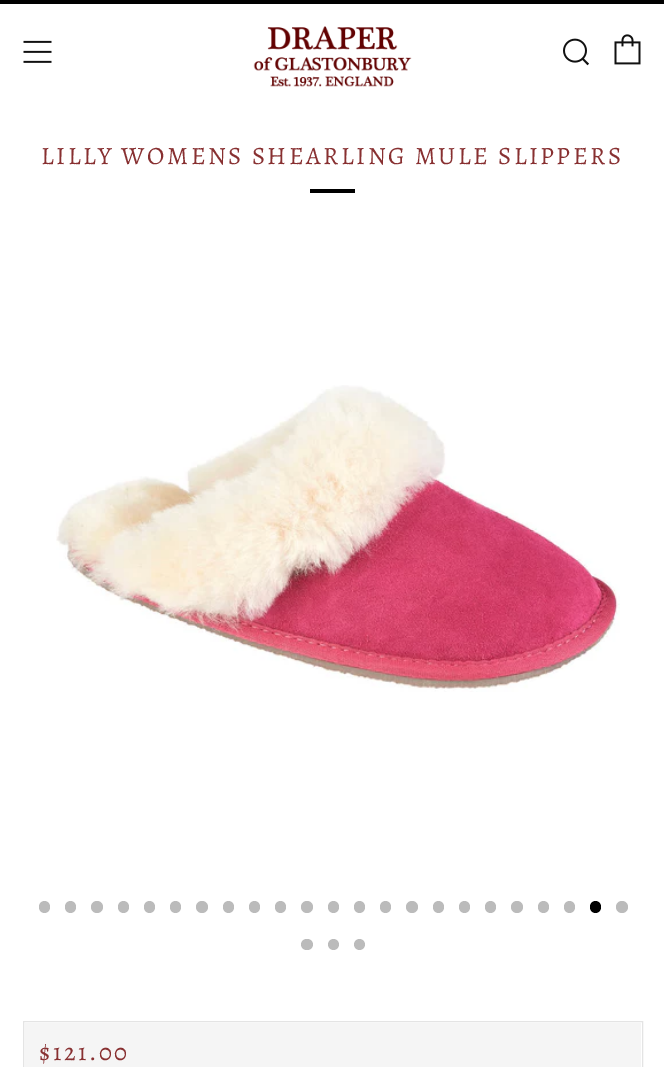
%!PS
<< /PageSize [664 1067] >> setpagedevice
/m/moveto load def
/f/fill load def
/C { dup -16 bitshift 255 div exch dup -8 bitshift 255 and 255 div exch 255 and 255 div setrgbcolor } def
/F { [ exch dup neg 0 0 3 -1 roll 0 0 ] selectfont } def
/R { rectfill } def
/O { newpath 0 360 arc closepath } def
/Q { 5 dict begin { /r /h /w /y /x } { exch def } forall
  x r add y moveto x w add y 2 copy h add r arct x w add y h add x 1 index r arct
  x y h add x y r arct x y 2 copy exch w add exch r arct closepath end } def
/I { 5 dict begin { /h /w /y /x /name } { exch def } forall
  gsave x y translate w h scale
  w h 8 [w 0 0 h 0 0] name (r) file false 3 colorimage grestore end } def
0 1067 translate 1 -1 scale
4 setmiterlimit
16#FFFFFF C
0 0 664 1067 R
16#000000 C
0 0 664 4 R
(1.rgb) 23 40 29 23 I
(2.rgb) 253 26 159 61 I
(3.rgb) 563 38 26 28 I
(4.rgb) 614 34 27 31 I
/Alegreya-Regular 25 F
16#883031 C
41 164 m 2.5 0 (LILLY WOMENS SHEARLING MULE SLIPPERS) ashow
16#000000 C
310 189 45 4 R
(5.rgb) 56 385 564 307 I
16#BBBBBB C
39 901 11 12 5.5 Q f
65 901 11 12 5.5 Q f
97 907 6 O f
118 901 11 12 5.5 Q f
144 901 11 12 5.5 Q f
170 901 11 12 5.5 Q f
202 907 6 O f
223 901 11 12 5.5 Q f
249 901 11 12 5.5 Q f
275 901 11 12 5.5 Q f
307 907 6 O f
328 901 11 12 5.5 Q f
354 901 11 12 5.5 Q f
380 901 11 12 5.5 Q f
412 907 6 O f
433 901 11 12 5.5 Q f
459 901 11 12 5.5 Q f
485 901 11 12 5.5 Q f
517 907 6 O f
538 901 11 12 5.5 Q f
564 901 11 12 5.5 Q f
16#000000 C
590 901 11 12 5.5 Q f
16#BBBBBB C
622 907 6 O f
301 939 12 11 5.5 Q f
333.5 944.5 5.5 O f
359.5 944.5 5.5 O f
16#E4E4E4 C
23.5 1021.5 619 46 rectstroke
16#F5F5F5 C
24 1023 617 44 R
/Alegreya-Regular 24.5 F
16#883031 C
39 1060 m 2.5 0 ($121.00) ashow
showpage
